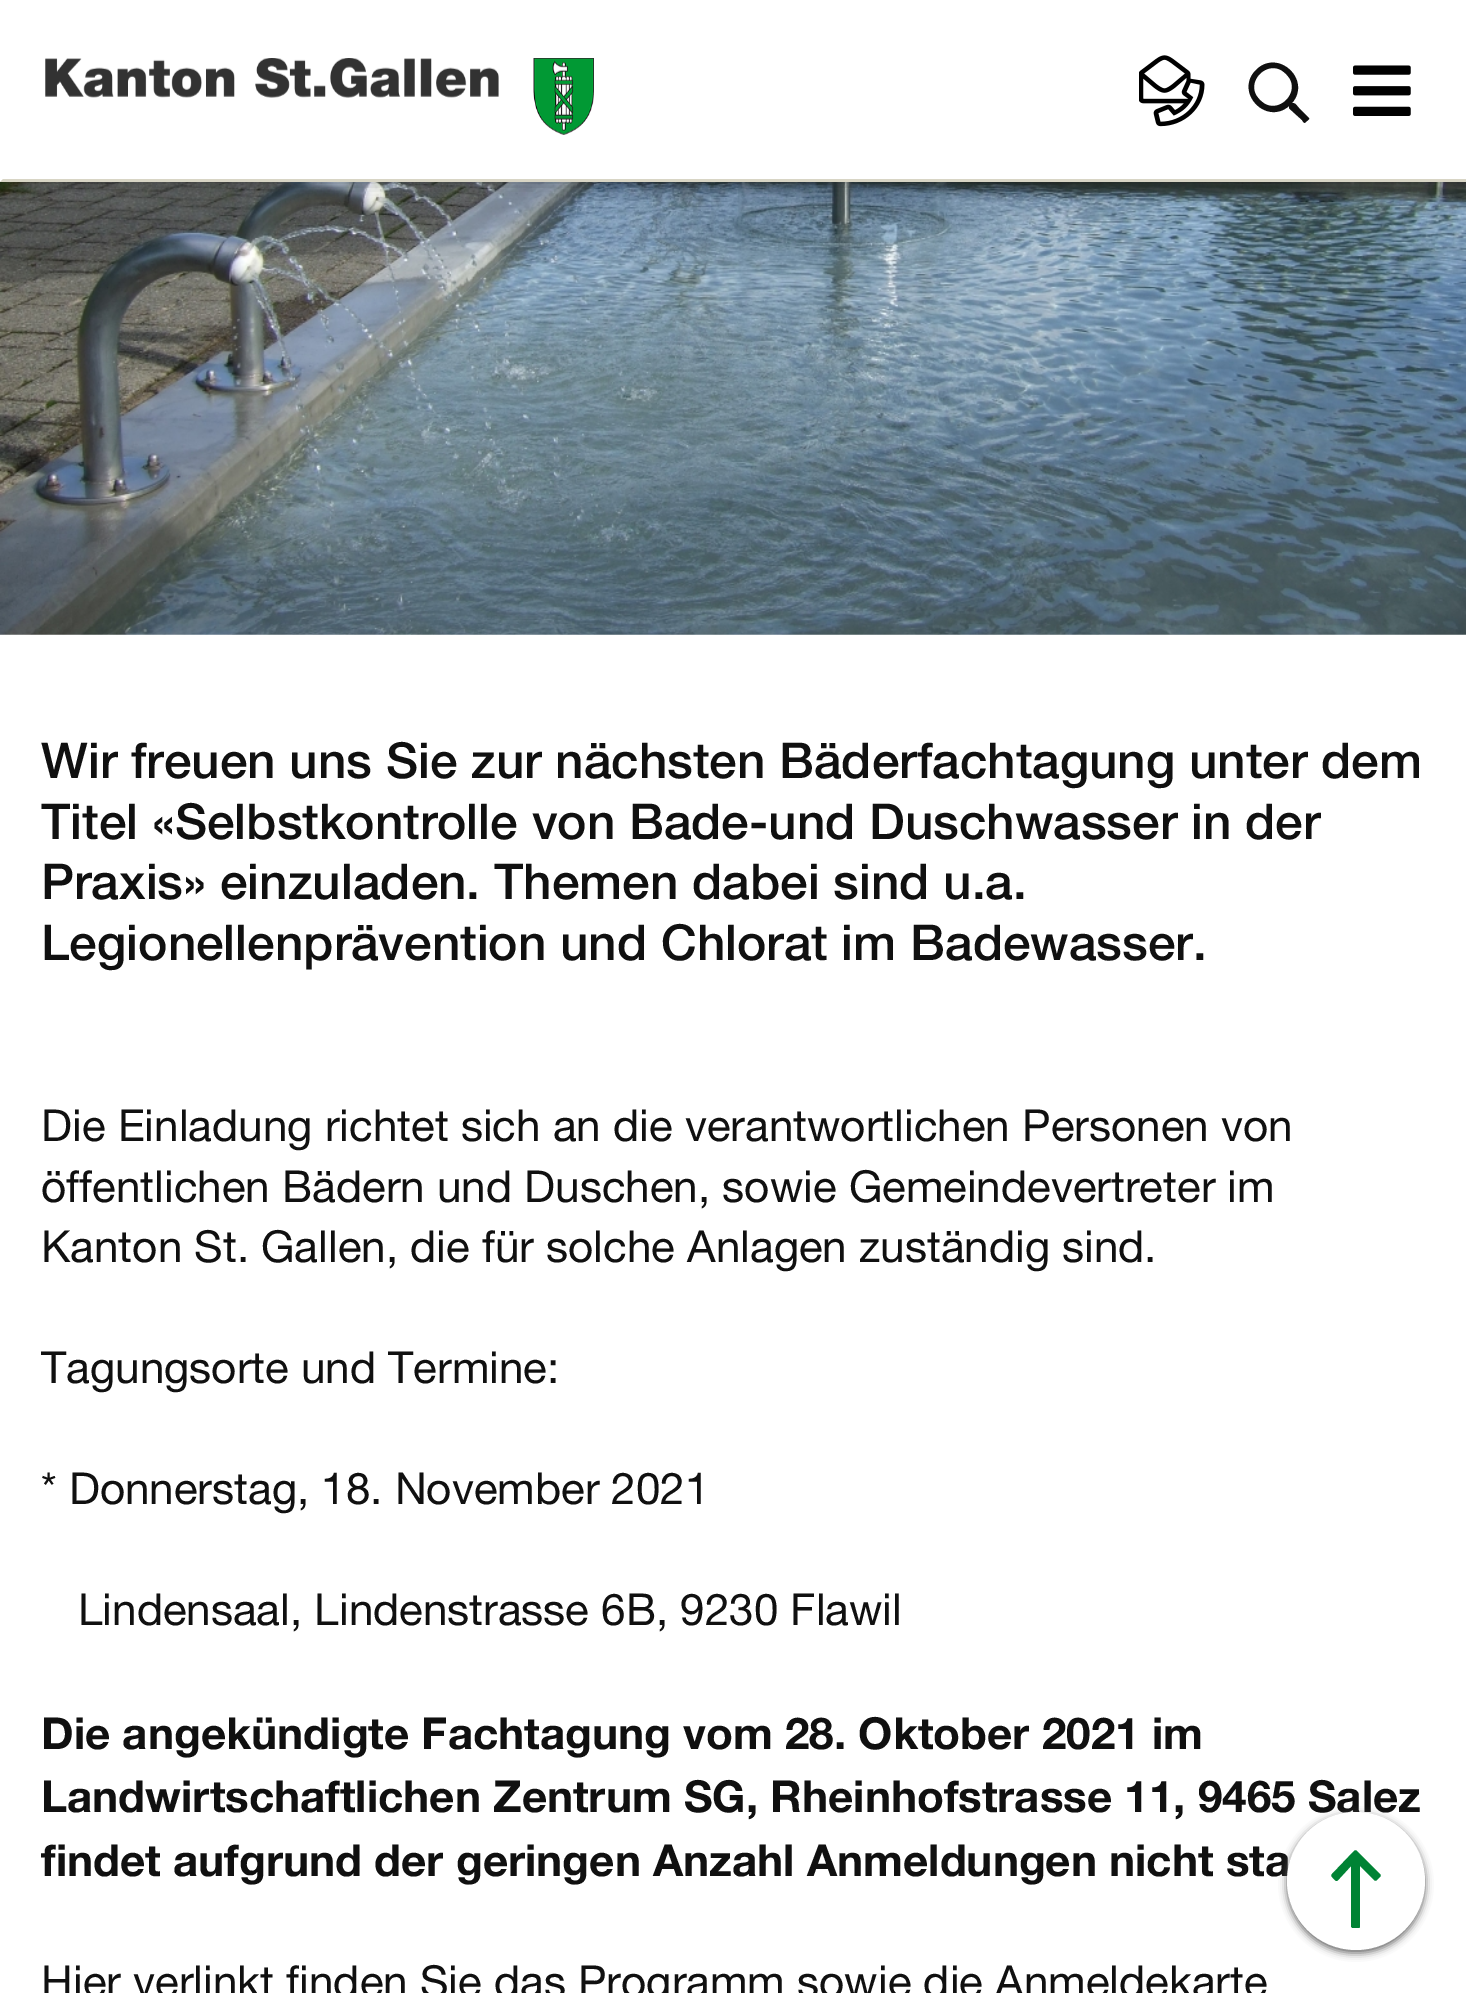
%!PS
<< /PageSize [1466 1993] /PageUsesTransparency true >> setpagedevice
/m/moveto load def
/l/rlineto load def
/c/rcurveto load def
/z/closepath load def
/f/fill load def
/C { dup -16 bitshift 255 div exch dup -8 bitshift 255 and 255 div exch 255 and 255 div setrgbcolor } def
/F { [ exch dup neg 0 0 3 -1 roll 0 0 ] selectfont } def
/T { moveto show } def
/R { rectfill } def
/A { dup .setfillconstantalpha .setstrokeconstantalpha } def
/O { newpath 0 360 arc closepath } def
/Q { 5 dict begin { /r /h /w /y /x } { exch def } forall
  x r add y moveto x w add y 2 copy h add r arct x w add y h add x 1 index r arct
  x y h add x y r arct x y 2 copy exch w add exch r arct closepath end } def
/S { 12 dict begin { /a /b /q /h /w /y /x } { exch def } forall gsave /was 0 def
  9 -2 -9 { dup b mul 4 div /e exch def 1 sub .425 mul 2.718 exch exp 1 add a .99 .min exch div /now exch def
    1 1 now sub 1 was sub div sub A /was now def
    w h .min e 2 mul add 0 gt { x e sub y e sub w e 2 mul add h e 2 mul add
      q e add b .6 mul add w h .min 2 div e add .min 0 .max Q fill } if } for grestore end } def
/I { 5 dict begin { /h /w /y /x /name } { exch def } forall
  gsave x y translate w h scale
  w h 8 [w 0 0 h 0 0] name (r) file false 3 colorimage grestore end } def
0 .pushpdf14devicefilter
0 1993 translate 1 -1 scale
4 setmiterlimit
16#FFFFFF C
0 0 1466 1993 R
(5.rgb) 0 182 1466 453 I
16#000000 C
0 0 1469 182 0 8 .28 S
16#FFFFFF C
0 0 1466 182 R
16#D8D5C5 C
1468 182 m -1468 0 l 3 -3 l 1463 0 l z f
(1.rgb) 45 58 454 40 I
(2.rgb) 533 58 61 77 I
(3.rgb) 1139 55 66 72 I
16#101010 C
1309 118 m 1 1 -1 2 -2 3 c -3 3 -3 2 -5 -1 c -10 -9 l -3 -3 -3 -2 -3 -5 c -23 20 -55 -14 -33 -36 c 22 -22 56 10 36 33 c 4 0 4 2 7 5 c z 1260 100 m 17 18 44 -9 26 -26 c -17 -18 -44 9 -26 26 c z f
(4.rgb) 1353 65 58 51 I
/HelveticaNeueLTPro-Regular 49.5 F
(Wir freuen uns Sie zur nächsten Bäderfachtagung unter dem) 41 778 T
(Titel «Selbstkontrolle von Bade-und Duschwasser in der) 41 839 T
(Praxis» einzuladen. Themen dabei sind u.a.) 41 899 T
(Legionellenprävention und Chlorat im Badewasser.) 41 960 T
/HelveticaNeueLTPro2-Regular 44 F
(Die Einladung richtet sich an die verantwortlichen Personen von) 41 1141 T
(öffentlichen Bädern und Duschen, sowie Gemeindevertreter im) 41 1202 T
(Kanton St. Gallen, die für solche Anlagen zuständig sind.) 41 1262 T
(Tagungsorte und Termine:) 41 1383 T
(* Donnerstag, 18. November 2021) 41 1504 T
(Lindensaal, Lindenstrasse 6B, 9230 Flawil) 78 1625 T
/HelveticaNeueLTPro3-Regular 44 F
(Die angekündigte Fachtagung vom 28. Oktober 2021 im) 41 1749 T
(Landwirtschaftlichen Zentrum SG, Rheinhofstrasse 11, 9465 Salez) 41 1812 T
(findet aufgrund der geringen Anzahl Anmeldungen nicht sta) 41 1876 T
/HelveticaNeueLTPro2-Regular 44 F
(Hier verlinkt finden Sie das Programm sowie die Anmeldekarte) 41 1997 T
16#636363 C
1287 1815 138 138 69 4 1 S
16#FFFFFF C
1356 1881 69 O f
16#008334 C
1332 1877 m -1 -1 -1 -2 0 -3 c 22 -23 l 1 -1 2 -1 3 0 c 23 23 l 1 1 1 2 0 3 c -3 3 l -1 1 -2 1 -3 0 c -14 -14 l 0 60 l 0 1 0 2 -2 2 c -5 0 l -1 0 -2 -1 -2 -2 c 0 -60 l -11 12 l -4 5 -4 3 -8 -1 c z f
.poppdf14devicefilter showpage
